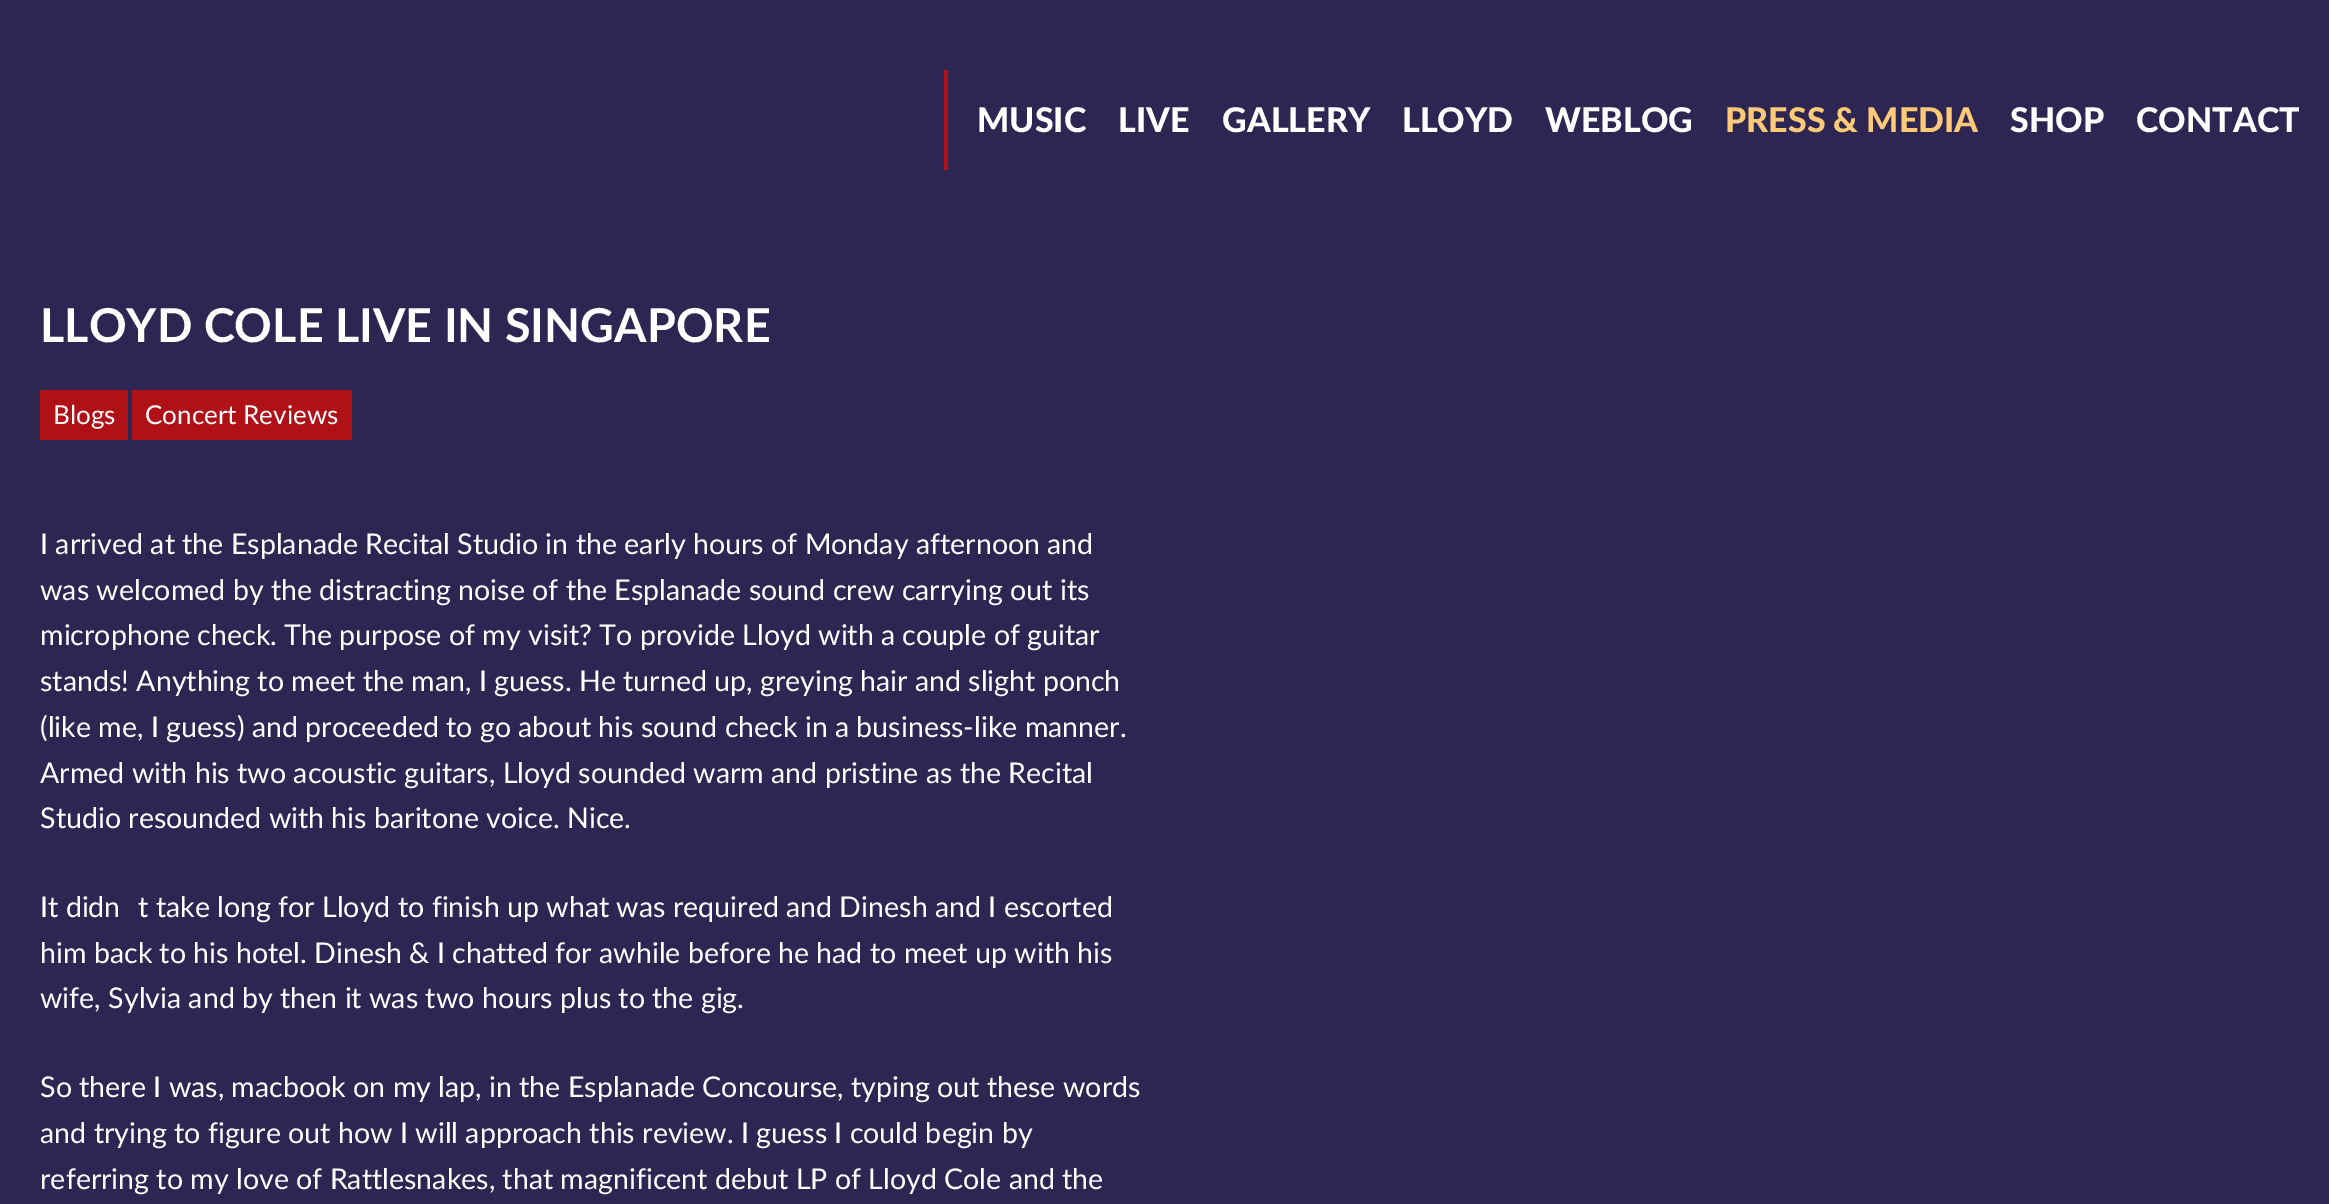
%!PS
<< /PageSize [2329 1204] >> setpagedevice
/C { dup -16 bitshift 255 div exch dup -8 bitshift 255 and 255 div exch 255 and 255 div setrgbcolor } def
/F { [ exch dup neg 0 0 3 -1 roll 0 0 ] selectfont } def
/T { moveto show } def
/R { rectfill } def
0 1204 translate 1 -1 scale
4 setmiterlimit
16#2D2653 C
0 0 2329 1204 R
16#B01116 C
944 70 4 100 R
/Lato-Black 34 F
16#FFFFFF C
(MUSIC) 977 132 T
(LIVE) 1118 132 T
(GALLERY) 1222 132 T
(LLOYD) 1402 132 T
(WEBLOG) 1545 132 T
16#FECA77 C
(PRESS & MEDIA) 1725 132 T
16#FFFFFF C
(SHOP) 2010 132 T
(CONTACT) 2136 132 T
/Lato-Bold 46.75 F
(LLOYD COLE LIVE IN SINGAPORE) 40 342 T
16#B01116 C
40 390 88 50 R
/Lato-Regular 26 F
16#FFFFFF C
(Blogs) 53 424 T
16#B01116 C
132 390 220 50 R
16#FFFFFF C
(Concert Reviews) 145 424 T
/Lato-Regular 28.6 F
(I arrived at the Esplanade Recital Studio in the early hours of Monday afternoon and) 40 554 T
(was welcomed by the distracting noise of the Esplanade sound crew carrying out its) 40 600 T
(microphone check. The purpose of my visit? To provide Lloyd with a couple of guitar) 40 645 T
(stands! Anything to meet the man, I guess. He turned up, greying hair and slight ponch) 40 691 T
(\(like me, I guess\) and proceeded to go about his sound check in a business-like manner.) 40 737 T
(Armed with his two acoustic guitars, Lloyd sounded warm and pristine as the Recital) 40 783 T
(Studio resounded with his baritone voice. Nice.) 40 828 T
(It didn) 40 917 T
(t take long for Lloyd to finish up what was required and Dinesh and I escorted) 138 917 T
(him back to his hotel. Dinesh & I chatted for awhile before he had to meet up with his) 40 963 T
(wife, Sylvia and by then it was two hours plus to the gig.) 40 1008 T
(So there I was, macbook on my lap, in the Esplanade Concourse, typing out these words) 40 1097 T
(and trying to figure out how I will approach this review. I guess I could begin by) 40 1143 T
(referring to my love of Rattlesnakes, that magnificent debut LP of Lloyd Cole and the) 40 1189 T
showpage
